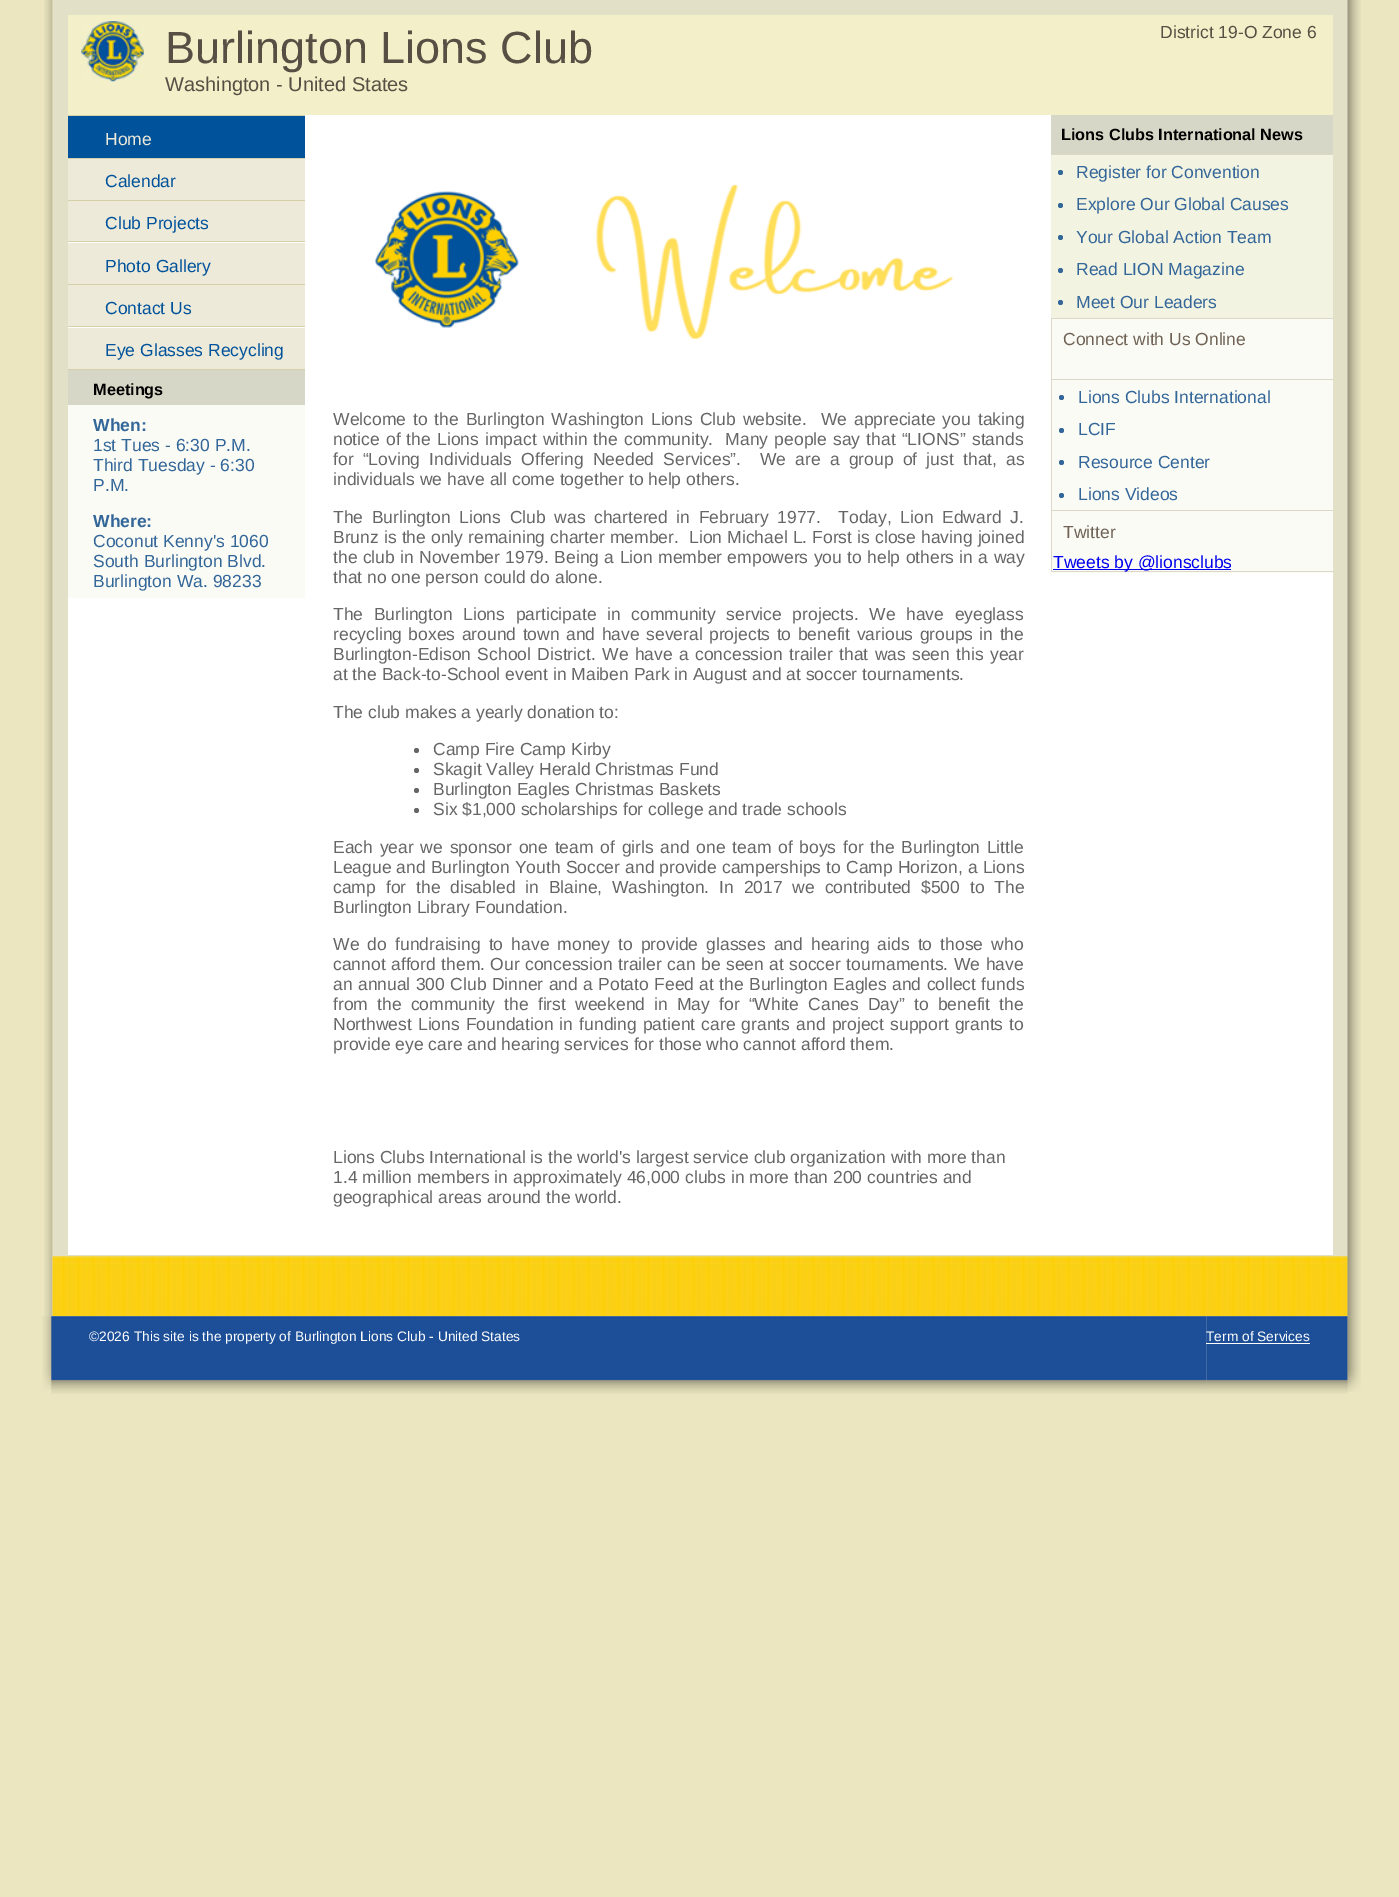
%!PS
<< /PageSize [1399 1897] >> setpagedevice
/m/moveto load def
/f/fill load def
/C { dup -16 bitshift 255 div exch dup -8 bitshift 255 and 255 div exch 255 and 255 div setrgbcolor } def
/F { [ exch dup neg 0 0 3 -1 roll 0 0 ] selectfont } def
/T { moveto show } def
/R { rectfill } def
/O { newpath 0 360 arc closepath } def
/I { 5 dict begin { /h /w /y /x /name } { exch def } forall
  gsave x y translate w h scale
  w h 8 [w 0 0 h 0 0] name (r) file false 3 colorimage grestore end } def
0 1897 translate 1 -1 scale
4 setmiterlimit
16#EBE6C0 C
0 0 1399 1897 R
(1.rgb) 44 0 9 1317 I
16#E2E0C6 C
53 0 1295 1316 R
(2.rgb) 52 1256 1296 61 I
16#F3F0C9 C
68 15 1265 100 R
(3.rgb) 81 21 63 61 I
/LiberationSans-Regular 45 F
16#584F44 C
(Burlington Lions Club) 165 63 T
/LiberationSans-Regular 20 F
(Washington - United States) 165 91 T
/LiberationSans-Regular 17.5 F
(District 19-O Zone 6) 1160 38 T
16#FFFFFF C
68 115 1265 1140 R
16#D5D0AA C
68 115 237 1 R
68 158 237 1 R
16#00529B C
68 116 237 42 R
16#EDEADA C
(Home) 105 145 T
16#D5D0AA C
68 200 237 1 R
16#EDEADA C
68 159 237 41 R
16#00529B C
(Calendar) 105 187 T
16#D5D0AA C
68 241 237 1 R
16#EDEADA C
68 201 237 40 R
16#00529B C
(Club Projects) 105 229 T
16#D5D0AA C
68 284 237 1 R
16#EDEADA C
68 243 237 41 R
16#00529B C
(Photo Gallery) 105 272 T
16#D5D0AA C
68 326 237 1 R
16#EDEADA C
68 285 237 41 R
16#00529B C
(Contact Us) 105 314 T
16#D5D0AA C
68 369 237 1 R
16#EDEADA C
68 328 237 41 R
16#00529B C
(Eye Glasses Recycling) 105 356 T
16#FBFBF6 C
68 405 237 193 R
16#D7D7C7 C
68 370 237 35 R
/LiberationSans-Bold 16.25 F
16#000000 C
(Meetings) 93 395 T
/LiberationSans-Bold 17.5 F
16#336699 C
(When:) 93 431 T
/LiberationSans-Regular 17.5 F
(1st Tues - 6:30 P.M.) 93 451 T
(Third Tuesday - 6:30) 93 471 T
(P.M.) 93 491 T
/LiberationSans-Bold 17.5 F
(Where:) 93 527 T
/LiberationSans-Regular 17.5 F
(Coconut Kenny's 1060) 93 547 T
(South Burlington Blvd.) 93 567 T
(Burlington Wa. 98233) 93 587 T
16#F3F3E1 C
1051 155 282 163 R
16#D7D7C7 C
1051 115 282 39 R
/LiberationSans-Bold 16.25 F
16#000000 C
(Lions Clubs International News) 1061 140 T
16#DCD8C8 C
1051 154 282 1 R
16#336699 C
1060.5 172.5 2.5 O f
/LiberationSans-Regular 17.5 F
(Register for Convention) 1076 178 T
1060.5 205.5 2.5 O f
(Explore Our Global Causes) 1076 210 T
1060.5 237.5 2.5 O f
(Your Global Action Team) 1076 243 T
1060.5 270.5 2.5 O f
(Read LION Magazine) 1076 275 T
1060.5 302.5 2.5 O f
(Meet Our Leaders) 1076 308 T
16#DCD8C8 C
1051 318 282 1 R
16#FBFBF6 C
1052 319 281 60 R
16#DCD8C8 C
1051 319 1 60 R
16#706356 C
(Connect with Us Online) 1063 345 T
16#DCD8C8 C
1051 379 282 1 R
16#FBFBF6 C
1052 380 281 130 R
16#DCD8C8 C
1051 380 1 130 R
16#336699 C
1061.5 397.5 2.5 O f
(Lions Clubs International) 1078 403 T
1061.5 430.5 2.5 O f
(LCIF) 1078 435 T
1061.5 462.5 2.5 O f
(Resource Center) 1078 468 T
1061.5 495.5 2.5 O f
(Lions Videos) 1078 500 T
16#DCD8C8 C
1051 510 282 1 R
16#FBFBF6 C
1051 511 282 62 R
16#DCD8C8 C
1051 511 1 60 R
16#706356 C
(Twitter) 1063 538 T
16#0000EE C
1053 569 178 1 R
16#DCD8C8 C
1051 571 282 1 R
16#0000EE C
(Tweets by @lionsclubs) 1053 568 T
(4.rgb) 374 184 580 155 I
16#666666 C
333 425 m 2.1 0 32 (Welcome to the Burlington Washington Lions Club website.  We appreciate you taking) widthshow
333 445 m 1.25 0 32 (notice of the Lions impact within the community.  Many people say that “LIONS” stands) widthshow
333 465 m 4.4 0 32 (for “Loving Individuals Offering Needed Services”.  We are a group of just that, as) widthshow
(individuals we have all come together to help others.) 333 485 T
333 523 m 3.75 0 32 (The Burlington Lions Club was chartered in February 1977.  Today, Lion Edward J.) widthshow
333 543 m .25 0 32 (Brunz is the only remaining charter member.  Lion Michael L. Forst is close having joined) widthshow
333 563 m .5 0 32 (the club in November 1979. Being a Lion member empowers you to help others in a way) widthshow
(that no one person could do alone.) 333 583 T
333 620 m 5.75 0 32 (The Burlington Lions participate in community service projects. We have eyeglass) widthshow
333 640 m 1.6 0 32 (recycling boxes around town and have several projects to benefit various groups in the) widthshow
333 660 m 1.5 0 32 (Burlington-Edison School District. We have a concession trailer that was seen this year) widthshow
(at the Back-to-School event in Maiben Park in August and at soccer tournaments.) 333 680 T
(The club makes a yearly donation to:) 333 718 T
416.5 750.5 2.5 O f
(Camp Fire Camp Kirby) 433 755 T
416.5 770.5 2.5 O f
(Skagit Valley Herald Christmas Fund) 433 775 T
416.5 790.5 2.5 O f
(Burlington Eagles Christmas Baskets) 433 795 T
416.5 810.5 2.5 O f
(Six $1,000 scholarships for college and trade schools) 433 815 T
333 853 m 1.9 0 32 (Each year we sponsor one team of girls and one team of boys for the Burlington Little) widthshow
333 873 m .25 0 32 (League and Burlington Youth Soccer and provide camperships to Camp Horizon, a Lions) widthshow
333 893 m 5 0 32 (camp for the disabled in Blaine, Washington. In 2017 we contributed $500 to The) widthshow
(Burlington Library Foundation.) 333 913 T
333 950 m 3.25 0 32 (We do fundraising to have money to provide glasses and hearing aids to those who) widthshow
333 970 m .6 0 32 (cannot afford them. Our concession trailer can be seen at soccer tournaments. We have) widthshow
333 990 m .5 0 32 (an annual 300 Club Dinner and a Potato Feed at the Burlington Eagles and collect funds) widthshow
333 1010 m 4.25 0 32 (from the community the first weekend in May for “White Canes Day” to benefit the) widthshow
333 1030 m 1.25 0 32 (Northwest Lions Foundation in funding patient care grants and project support grants to) widthshow
(provide eye care and hearing services for those who cannot afford them.) 333 1050 T
(Lions Clubs International is the world's largest service club organization with more than) 333 1163 T
(1.4 million members in approximately 46,000 clubs in more than 200 countries and) 333 1183 T
(geographical areas around the world.) 333 1203 T
(5.rgb) 1347 0 14 1317 I
(7.rgb) 51 1316 1156 78 I
(6.rgb) 42 1316 10 74 I
/LiberationSans-Regular 13.75 F
16#FFFFFF C
(©2026 This site is the property of Burlington Lions Club - United States) 89 1341 T
(8.rgb) 1206 1316 142 78 I
(Term of Services) 1206 1341 T
1206 1343 104 1 R
(9.rgb) 1347 1316 14 76 I
showpage
